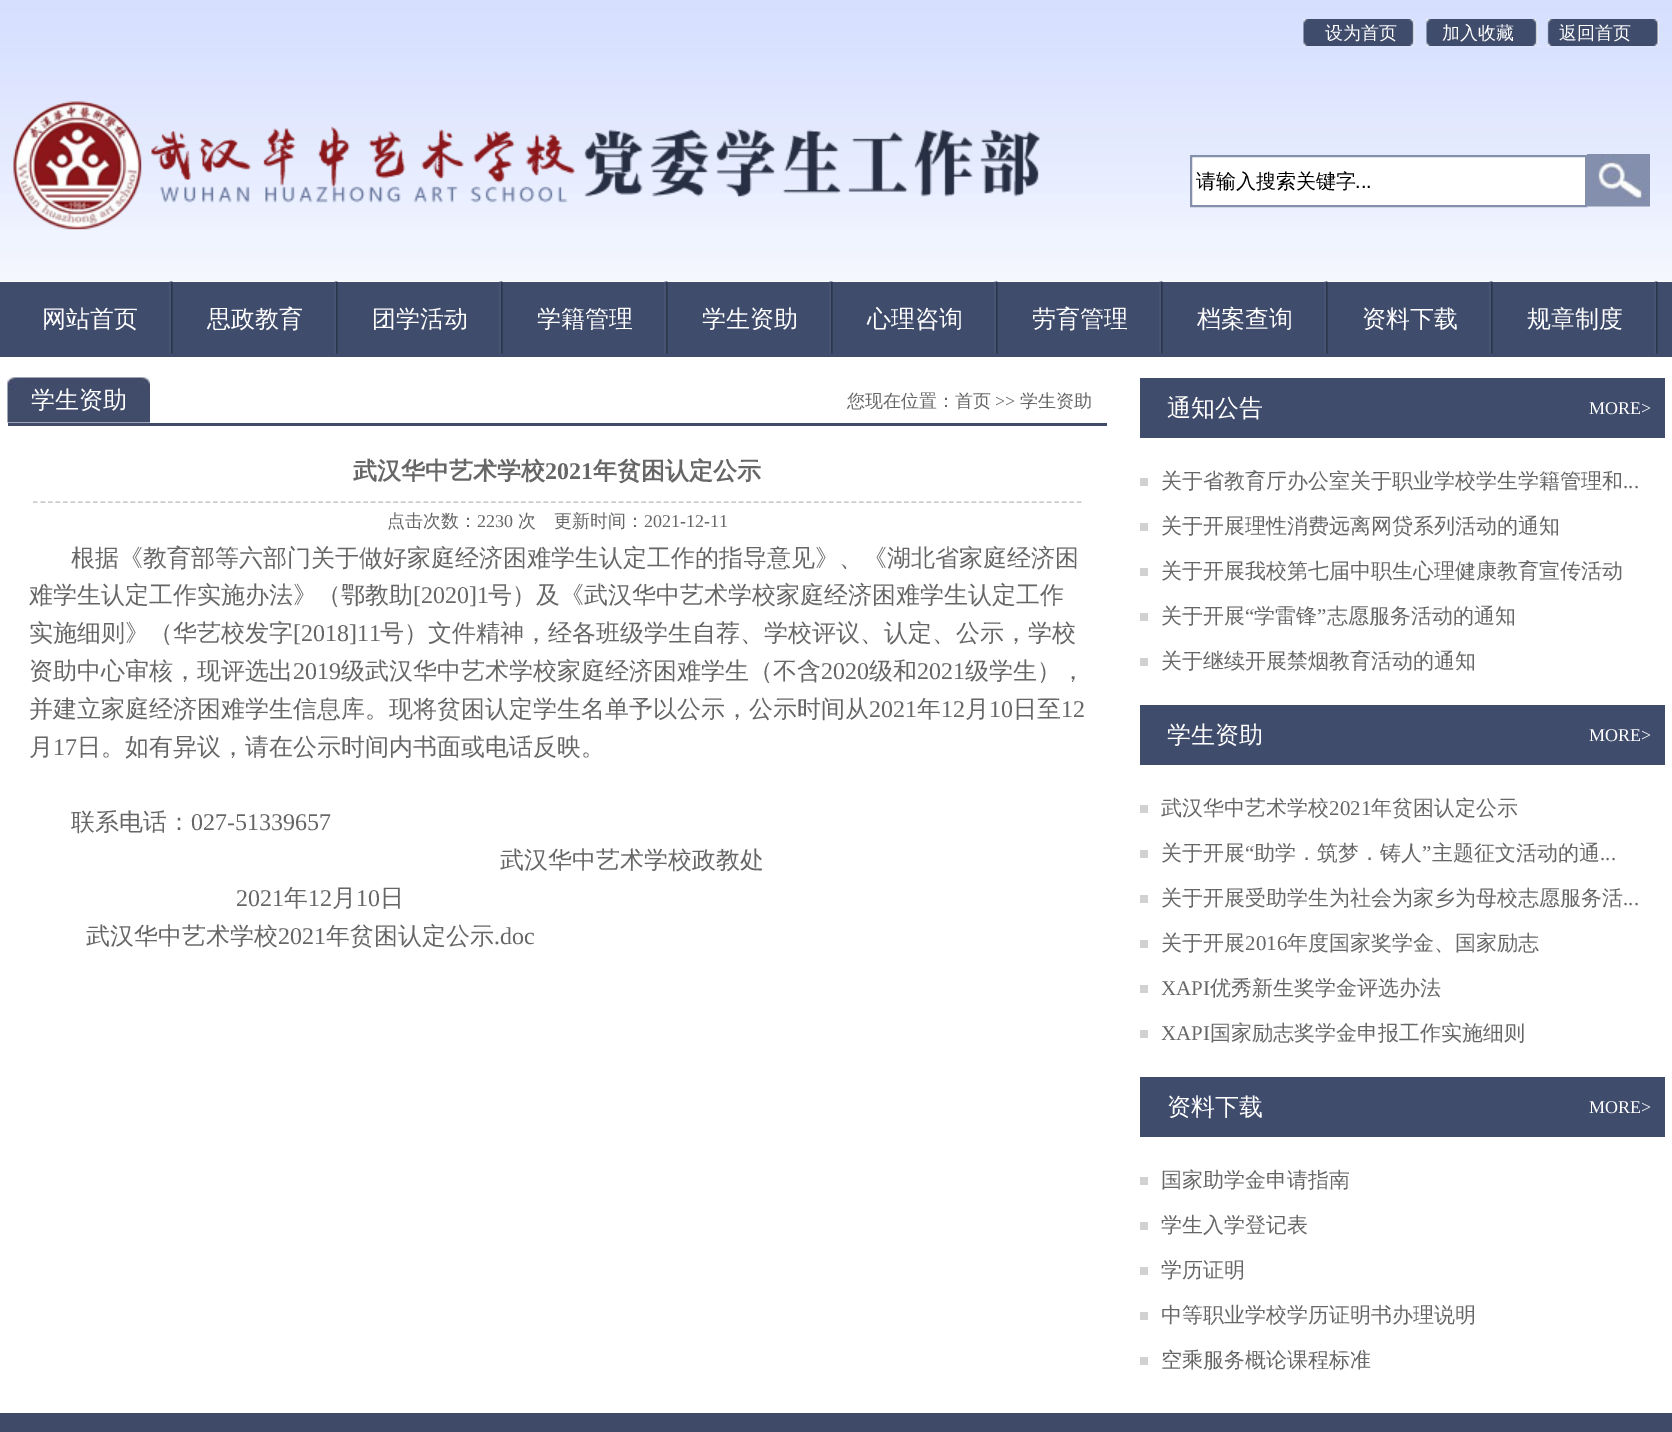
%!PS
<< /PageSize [1672 1432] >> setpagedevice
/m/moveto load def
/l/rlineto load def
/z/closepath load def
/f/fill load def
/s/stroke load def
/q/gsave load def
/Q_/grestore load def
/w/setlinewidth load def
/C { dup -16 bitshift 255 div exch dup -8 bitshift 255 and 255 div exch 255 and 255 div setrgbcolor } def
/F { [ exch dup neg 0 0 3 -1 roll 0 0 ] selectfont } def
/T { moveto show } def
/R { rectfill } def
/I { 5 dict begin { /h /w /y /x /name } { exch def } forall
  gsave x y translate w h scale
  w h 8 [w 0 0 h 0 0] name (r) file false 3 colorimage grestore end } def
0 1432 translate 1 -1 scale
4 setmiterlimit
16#FFFFFF C
0 0 1672 1432 R
(1.rgb) 0 0 1672 282 I
(2.rgb) 13 101 1027 129 I
(3.rgb) 1303 19 356 27 I
/WenQuanYiZenHei-Medium 18 F
(设为首页) 1325 39 T
(加入收藏) 1442 39 T
(返回首页) 1559 39 T
1191 156 m 395 0 l 0 50 l -395 0 l z q f Q_
16#848FAC C
2 w
s
/WenQuanYiZenHei-Medium 20 F
16#000000 C
(请输入搜索关键字) 1196 188 T
/LiberationSans-Regular 20 F
(...) 1355 188 T
(4.rgb) 1587 154 63 53 I
16#3F4C6C C
0 282 1672 75 R
(5.rgb) 169 281 4 73 I
/WenQuanYiZenHei-Medium 24 F
16#FFFFFF C
(网站首页) 42 327 T
(5.rgb) 334 281 4 73 I
(思政教育) 207 327 T
(5.rgb) 499 281 4 73 I
(团学活动) 372 327 T
(5.rgb) 664 281 4 73 I
(学籍管理) 537 327 T
(5.rgb) 829 281 4 73 I
(学生资助) 702 327 T
(5.rgb) 994 281 4 73 I
(心理咨询) 867 327 T
(5.rgb) 1159 281 4 73 I
(劳育管理) 1032 327 T
(5.rgb) 1324 281 4 73 I
(档案查询) 1197 327 T
(5.rgb) 1489 281 4 73 I
(资料下载) 1362 327 T
(5.rgb) 1654 281 4 73 I
(规章制度) 1527 327 T
16#414C6A C
8 423 1099 3 R
(6.rgb) 7 377 143 46 I
16#FFFFFF C
(学生资助) 31 408 T
/WenQuanYiZenHei-Medium 18 F
16#666666 C
(您现在位置：首页) 847 407 T
/LiberationSerif-Regular 18 F
(>>) 995 407 T
/WenQuanYiZenHei-Medium 18 F
(学生资助) 1020 407 T
16#CCCCCC C
1.5 w
[4.5 3.01] 0 setdash
33 502 m 1050 0 l s
/WenQuanYiZenHei-Bold 24 F
16#666666 C
(武汉华中艺术学校) 353 479 T
/LiberationSerif-Bold 24 F
(2021) 545 479 T
/WenQuanYiZenHei-Bold 24 F
(年贫困认定公示) 593 479 T
/WenQuanYiZenHei-Medium 18 F
(点击次数：) 387 527 T
/LiberationSerif-Regular 18 F
(2230) 477 527 T
/WenQuanYiZenHei-Medium 18 F
(次) 518 527 T
(更新时间：) 554 527 T
/LiberationSerif-Regular 18 F
(2021-12-11) 644 527 T
/WenQuanYiZenHei-Medium 24 F
(根据《教育部等六部门关于做好家庭经济困难学生认定工作的指导意见》、《湖北省家庭经济困) 71 566 T
(难学生认定工作实施办法》（鄂教助) 29 603 T
/LiberationSerif-Regular 24 F
([2020]1) 413 603 T
/WenQuanYiZenHei-Medium 24 F
(号）及《武汉华中艺术学校家庭经济困难学生认定工作) 488 603 T
(实施细则》（华艺校发字) 29 641 T
/LiberationSerif-Regular 24 F
([2018]11) 293 641 T
/WenQuanYiZenHei-Medium 24 F
(号）文件精神，经各班级学生自荐、学校评议、认定、公示，学校) 380 641 T
(资助中心审核，现评选出) 29 679 T
/LiberationSerif-Regular 24 F
(2019) 293 679 T
/WenQuanYiZenHei-Medium 24 F
(级武汉华中艺术学校家庭经济困难学生（不含) 341 679 T
/LiberationSerif-Regular 24 F
(2020) 821 679 T
/WenQuanYiZenHei-Medium 24 F
(级和) 869 679 T
/LiberationSerif-Regular 24 F
(2021) 917 679 T
/WenQuanYiZenHei-Medium 24 F
(级学生），) 965 679 T
(并建立家庭经济困难学生信息库。现将贫困认定学生名单予以公示，公示时间从) 29 717 T
/LiberationSerif-Regular 24 F
(2021) 869 717 T
/WenQuanYiZenHei-Medium 24 F
(年) 917 717 T
/LiberationSerif-Regular 24 F
(12) 941 717 T
/WenQuanYiZenHei-Medium 24 F
(月) 965 717 T
/LiberationSerif-Regular 24 F
(10) 989 717 T
/WenQuanYiZenHei-Medium 24 F
(日至) 1013 717 T
/LiberationSerif-Regular 24 F
(12) 1061 717 T
/WenQuanYiZenHei-Medium 24 F
(月) 29 755 T
/LiberationSerif-Regular 24 F
(17) 53 755 T
/WenQuanYiZenHei-Medium 24 F
(日。如有异议，请在公示时间内书面或电话反映。) 77 755 T
(联系电话：) 71 830 T
/LiberationSerif-Regular 24 F
(027-51339657) 191 830 T
/WenQuanYiZenHei-Medium 24 F
(武汉华中艺术学校政教处) 500 868 T
/LiberationSerif-Regular 24 F
(2021) 236 906 T
/WenQuanYiZenHei-Medium 24 F
(年) 284 906 T
/LiberationSerif-Regular 24 F
(12) 308 906 T
/WenQuanYiZenHei-Medium 24 F
(月) 332 906 T
/LiberationSerif-Regular 24 F
(10) 356 906 T
/WenQuanYiZenHei-Medium 24 F
(日) 380 906 T
(武汉华中艺术学校) 86 944 T
/LiberationSerif-Regular 24 F
(2021) 278 944 T
/WenQuanYiZenHei-Medium 24 F
(年贫困认定公示) 326 944 T
/LiberationSerif-Regular 24 F
(.doc) 494 944 T
16#3F4C6C C
1140 378 525 60 R
/WenQuanYiZenHei-Medium 24 F
16#FFFFFF C
(通知公告) 1167 416 T
/LiberationSerif-Regular 18 F
(MORE>) 1589 414 T
16#D1D1D1 C
1140 478 8 8 R
/WenQuanYiZenHei-Medium 21 F
16#666666 C
(关于省教育厅办公室关于职业学校学生学籍管理和) 1161 488 T
/LiberationSerif-Regular 21 F
(...) 1623 488 T
16#D1D1D1 C
1140 523 8 8 R
/WenQuanYiZenHei-Medium 21 F
16#666666 C
(关于开展理性消费远离网贷系列活动的通知) 1161 533 T
16#D1D1D1 C
1140 568 8 8 R
16#666666 C
(关于开展我校第七届中职生心理健康教育宣传活动) 1161 578 T
16#D1D1D1 C
1140 613 8 8 R
16#666666 C
(关于开展) 1161 623 T
/LiberationSerif-Regular 21 F
(“) 1245 623 T
/WenQuanYiZenHei-Medium 21 F
(学雷锋) 1254 623 T
/LiberationSerif-Regular 21 F
(”) 1317 623 T
/WenQuanYiZenHei-Medium 21 F
(志愿服务活动的通知) 1327 623 T
16#D1D1D1 C
1140 658 8 8 R
16#666666 C
(关于继续开展禁烟教育活动的通知) 1161 668 T
16#3F4C6C C
1140 705 525 60 R
/WenQuanYiZenHei-Medium 24 F
16#FFFFFF C
(学生资助) 1167 743 T
/LiberationSerif-Regular 18 F
(MORE>) 1589 741 T
16#D1D1D1 C
1140 805 8 8 R
/WenQuanYiZenHei-Medium 21 F
16#666666 C
(武汉华中艺术学校) 1161 815 T
/LiberationSerif-Regular 21 F
(2021) 1329 815 T
/WenQuanYiZenHei-Medium 21 F
(年贫困认定公示) 1371 815 T
16#D1D1D1 C
1140 850 8 8 R
16#666666 C
(关于开展) 1161 860 T
/LiberationSerif-Regular 21 F
(“) 1245 860 T
/WenQuanYiZenHei-Medium 21 F
(助学．筑梦．铸人) 1254 860 T
/LiberationSerif-Regular 21 F
(”) 1422 860 T
/WenQuanYiZenHei-Medium 21 F
(主题征文活动的通) 1432 860 T
/LiberationSerif-Regular 21 F
(...) 1600 860 T
16#D1D1D1 C
1140 895 8 8 R
/WenQuanYiZenHei-Medium 21 F
16#666666 C
(关于开展受助学生为社会为家乡为母校志愿服务活) 1161 905 T
/LiberationSerif-Regular 21 F
(...) 1623 905 T
16#D1D1D1 C
1140 940 8 8 R
/WenQuanYiZenHei-Medium 21 F
16#666666 C
(关于开展) 1161 950 T
/LiberationSerif-Regular 21 F
(2016) 1245 950 T
/WenQuanYiZenHei-Medium 21 F
(年度国家奖学金、国家励志) 1287 950 T
16#D1D1D1 C
1140 985 8 8 R
/LiberationSerif-Regular 21 F
16#666666 C
(XAPI) 1161 995 T
/WenQuanYiZenHei-Medium 21 F
(优秀新生奖学金评选办法) 1210 995 T
16#D1D1D1 C
1140 1030 8 8 R
/LiberationSerif-Regular 21 F
16#666666 C
(XAPI) 1161 1040 T
/WenQuanYiZenHei-Medium 21 F
(国家励志奖学金申报工作实施细则) 1210 1040 T
16#3F4C6C C
1140 1077 525 60 R
/WenQuanYiZenHei-Medium 24 F
16#FFFFFF C
(资料下载) 1167 1115 T
/LiberationSerif-Regular 18 F
(MORE>) 1589 1113 T
16#D1D1D1 C
1140 1177 8 8 R
/WenQuanYiZenHei-Medium 21 F
16#666666 C
(国家助学金申请指南) 1161 1187 T
16#D1D1D1 C
1140 1222 8 8 R
16#666666 C
(学生入学登记表) 1161 1232 T
16#D1D1D1 C
1140 1267 8 8 R
16#666666 C
(学历证明) 1161 1277 T
16#D1D1D1 C
1140 1312 8 8 R
16#666666 C
(中等职业学校学历证明书办理说明) 1161 1322 T
16#D1D1D1 C
1140 1357 8 8 R
16#666666 C
(空乘服务概论课程标准) 1161 1367 T
16#3F4A68 C
0 1413 1672 19 R
showpage
